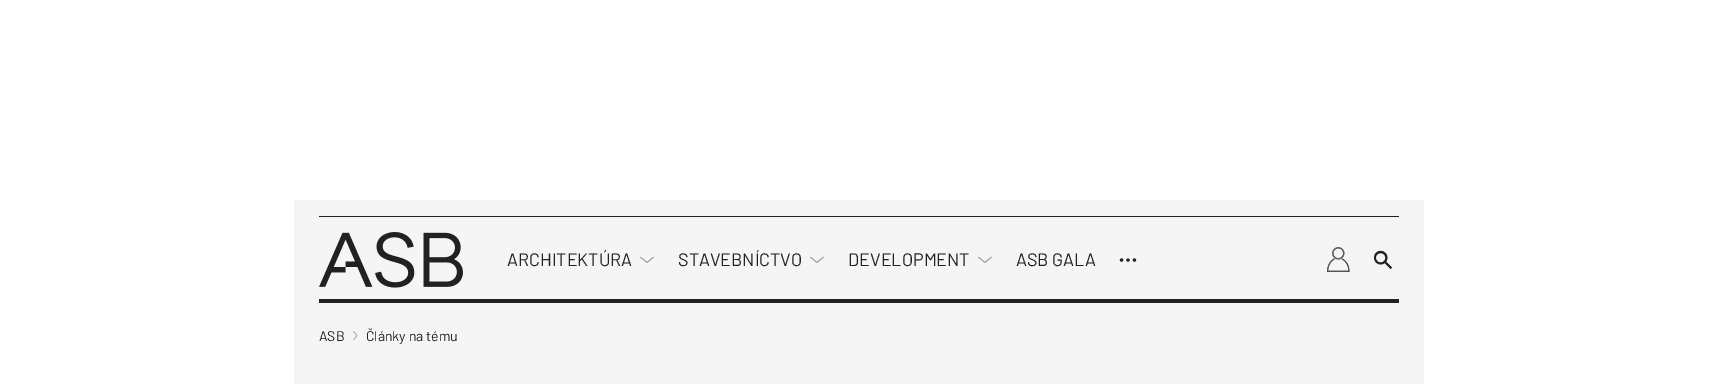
%!PS
<< /PageSize [1717 384] >> setpagedevice
/C { dup -16 bitshift 255 div exch dup -8 bitshift 255 and 255 div exch 255 and 255 div setrgbcolor } def
/F { [ exch dup neg 0 0 3 -1 roll 0 0 ] selectfont } def
/T { moveto show } def
/R { rectfill } def
/I { 5 dict begin { /h /w /y /x /name } { exch def } forall
  gsave x y translate w h scale
  w h 8 [w 0 0 h 0 0] name (r) file false 3 colorimage grestore end } def
0 384 translate 1 -1 scale
4 setmiterlimit
16#FFFFFF C
0 0 1717 384 R
16#F5F5F5 C
294 200 1130 184 R
16#212121 C
319 299 1080 4 R
319 216 1080 1 R
(1.rgb) 319 232 144 56 I
/Barlow-Regular 18 F
(ARCHITEKTÚRA) 507 266 T
(2.rgb) 640 256 14 8 I
(STAVEBNÍCTVO) 678 266 T
(2.rgb) 810 256 14 8 I
(DEVELOPMENT) 848 266 T
(2.rgb) 978 256 14 8 I
(ASB GALA) 1016 266 T
(3.rgb) 1119 258 18 4 I
(4.rgb) 1327 247 23 25 I
(5.rgb) 1373 250 20 20 I
/Barlow-Regular 14 F
(ASB) 319 341 T
(6.rgb) 353 331 5 10 I
(Články na tému) 366 341 T
showpage
